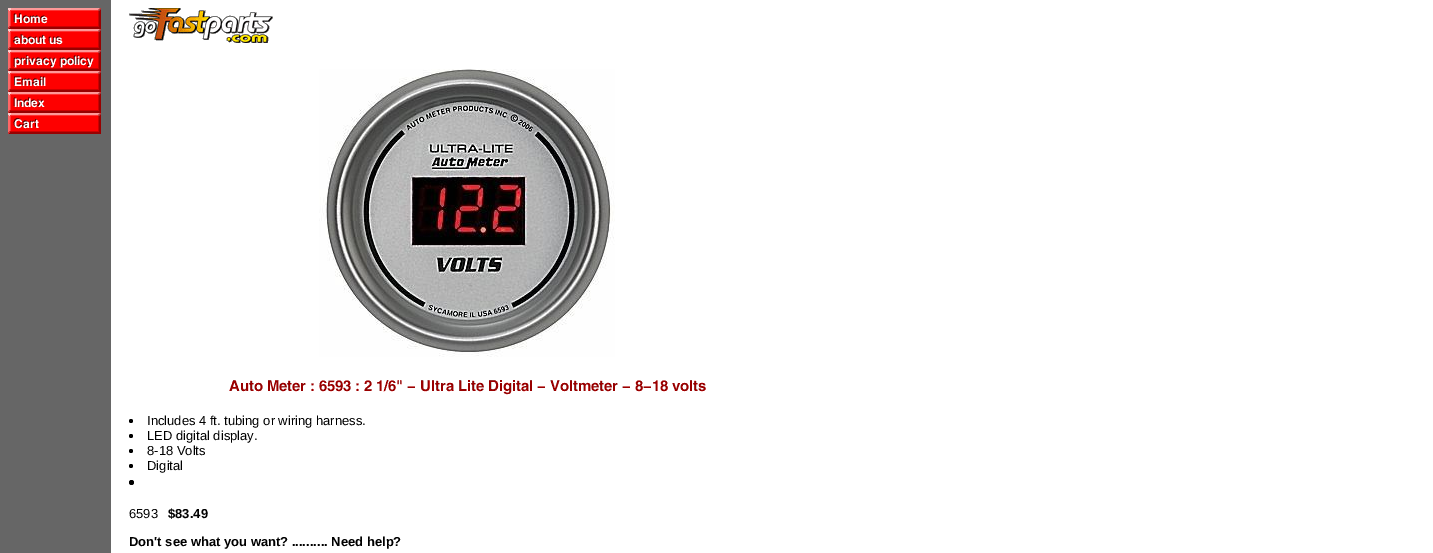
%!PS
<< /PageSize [1433 553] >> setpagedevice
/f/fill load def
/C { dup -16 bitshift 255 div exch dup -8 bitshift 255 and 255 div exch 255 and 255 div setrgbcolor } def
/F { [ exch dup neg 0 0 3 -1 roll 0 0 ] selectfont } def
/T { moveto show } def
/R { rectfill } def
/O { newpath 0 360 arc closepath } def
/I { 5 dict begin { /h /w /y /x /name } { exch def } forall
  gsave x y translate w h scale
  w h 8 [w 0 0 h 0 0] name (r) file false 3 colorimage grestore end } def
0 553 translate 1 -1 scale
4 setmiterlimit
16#FFFFFF C
0 0 1433 553 R
16#666666 C
0 0 111 553 R
(1.rgb) 8 8 93 126 I
(2.rgb) 129 8 144 35 I
(3.rgb) 319 69 296 288 I
(4.rgb) 229 380 477 15 I
16#000000 C
131 421 2 O f
/LiberationSans-Regular 13 F
(Includes 4 ft. tubing or wiring harness.) 147 425 T
131 436 2 O f
(LED digital display.) 147 440 T
131 451 2 O f
(8-18 Volts) 147 455 T
131 466 2 O f
(Digital) 147 470 T
131.5 482.5 2.5 O f
(6593) 129 518 T
/LiberationSans-Bold 13 F
($83.49) 168 518 T
(Don't see what you want? .......... Need help?) 129 546 T
showpage
